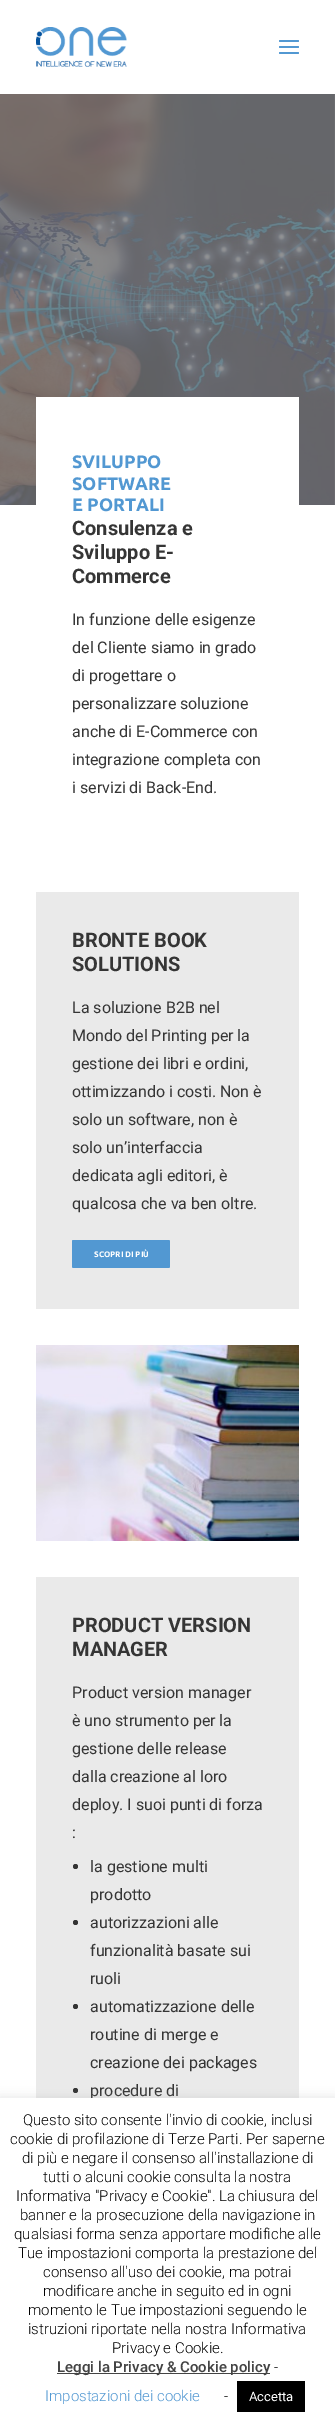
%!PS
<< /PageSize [335 2429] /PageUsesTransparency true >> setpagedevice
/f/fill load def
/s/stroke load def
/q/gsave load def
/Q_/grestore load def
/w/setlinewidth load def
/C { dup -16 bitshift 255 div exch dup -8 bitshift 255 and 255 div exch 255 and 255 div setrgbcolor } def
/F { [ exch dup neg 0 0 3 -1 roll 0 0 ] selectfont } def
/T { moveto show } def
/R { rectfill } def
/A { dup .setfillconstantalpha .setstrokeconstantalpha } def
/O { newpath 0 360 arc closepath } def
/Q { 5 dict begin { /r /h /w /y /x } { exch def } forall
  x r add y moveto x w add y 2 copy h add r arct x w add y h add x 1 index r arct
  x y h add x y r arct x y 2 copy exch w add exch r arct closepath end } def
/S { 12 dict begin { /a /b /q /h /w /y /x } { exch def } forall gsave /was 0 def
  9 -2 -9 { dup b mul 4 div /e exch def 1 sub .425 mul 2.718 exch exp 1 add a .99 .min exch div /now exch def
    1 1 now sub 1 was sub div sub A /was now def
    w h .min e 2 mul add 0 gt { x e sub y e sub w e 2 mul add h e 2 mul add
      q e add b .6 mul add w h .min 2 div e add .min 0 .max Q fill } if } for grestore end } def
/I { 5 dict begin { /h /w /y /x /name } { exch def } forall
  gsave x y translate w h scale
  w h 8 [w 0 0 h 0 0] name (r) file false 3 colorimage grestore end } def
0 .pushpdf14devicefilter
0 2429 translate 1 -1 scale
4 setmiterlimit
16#FFFFFF C
0 0 335 2429 R
(1.rgb) 36 27 91 40 I
16#5298D2 C
279 46 20 2 1 Q f
279 40 20 2 1 Q f
279 52 20 2 1 Q f
(2.rgb) 0 94 335 411 I
16#FFFFFF C
36 397 263 108 R
/Ubuntu-Bold 18 F
16#5298D2 C
(SVILUPPO) 72 468 T
(SOFTWARE) 72 490 T
(E PORTALI) 72 511 T
/Roboto-Bold 20 F
16#353535 C
(Consulenza e) 72 535 T
(Sviluppo E-) 72 559 T
(Commerce) 72 583 T
/Roboto-Regular 16 F
(In funzione delle esigenze) 72 625 T
(del Cliente siamo in grado) 72 653 T
(di progettare o) 72 681 T
(personalizzare soluzione) 72 709 T
(anche di E-Commerce con) 72 737 T
(integrazione completa con) 72 765 T
(i servizi di Back-End.) 72 793 T
16#EAEAEA C
36 892 263 417 R
/Roboto-Bold 20 F
16#353535 C
(BRONTE BOOK) 72 947 T
(SOLUTIONS) 72 971 T
/Roboto-Regular 16 F
(La soluzione B2B nel) 72 1013 T
(Mondo del Printing per la) 72 1041 T
(gestione dei libri e ordini,) 72 1069 T
(ottimizzando i costi. Non è) 72 1097 T
(solo un software, non è) 72 1125 T
(solo un’interfaccia) 72 1153 T
(dedicata agli editori, è) 72 1181 T
(qualcosa che va ben oltre.) 72 1209 T
16#5298D2 C
72.4 1240.4 97.2 27.2 1.1 Q q f Q_
.8 w
s
/Ubuntu-Bold 8 F
16#FFFFFF C
(SCOPRI DI PIÙ) 94 1257 T
(3.rgb) 36 1345 263 196 I
16#EAEAEA C
36 1577 263 521 R
/Roboto-Bold 20 F
16#353535 C
(PRODUCT VERSION) 72 1632 T
(MANAGER) 72 1656 T
/Roboto-Regular 16 F
(Product version manager) 72 1698 T
(è uno strumento per la) 72 1726 T
(gestione delle release) 72 1754 T
(dalla creazione al loro) 72 1782 T
(deploy. I suoi punti di forza) 72 1810 T
(:) 72 1838 T
16#333333 C
75.5 1866.5 2.5 O f
16#353535 C
(la gestione multi) 90 1872 T
(prodotto) 90 1900 T
16#333333 C
75.5 1922.5 2.5 O f
16#353535 C
(autorizzazioni alle) 90 1928 T
(funzionalità basate sui) 90 1956 T
(ruoli) 90 1984 T
16#333333 C
75.5 2006.5 2.5 O f
16#353535 C
(automatizzazione delle) 90 2012 T
(routine di merge e) 90 2040 T
(creazione dei packages) 90 2068 T
16#333333 C
75.5 2090.5 2.5 O f
16#353535 C
(procedure di) 90 2096 T
16#ACABAB C
0 2097 335 331 0 5 .3 S
16#FFFFFF C
0 2098 335 331 R
/Roboto-Light 15 F
16#000000 C
(Questo sito consente l'invio di cookie, inclusi) 23 2125 T
(cookie di profilazione di Terze Parti. Per saperne) 10 2144 T
(di più e negare il consenso all'installazione di) 22 2163 T
(tutti o alcuni cookie consulta la nostra) 43 2182 T
(Informativa "Privacy e Cookie". La chiusura del) 16 2201 T
(banner e la prosecuzione della navigazione in) 20 2220 T
(qualsiasi forma senza apportare modifiche alle) 14 2239 T
(Tue impostazioni comporta la prestazione del) 18 2258 T
(consenso all'uso dei cookie, ma potrai) 43 2277 T
(modificare anche in seguito ed in ogni) 43 2296 T
(momento le Tue impostazioni seguendo le) 28 2315 T
(istruzioni riportate nella nostra Informativa) 28 2334 T
(Privacy e Cookie.) 112 2353 T
16#444444 C
57 2373 213 1 R
/Roboto-Medium 15 F
(Leggi la Privacy & Cookie policy) 57 2372 T
/Roboto-Light 15 F
16#000000 C
(-) 274 2372 T
16#5298D2 C
(Impostazioni dei cookie) 45 2401 T
16#000000 C
(-) 224 2401 T
237 2381 68 31 R
/Roboto-Regular 13 F
16#FFFFFF C
(Accetta) 249 2401 T
.poppdf14devicefilter showpage
